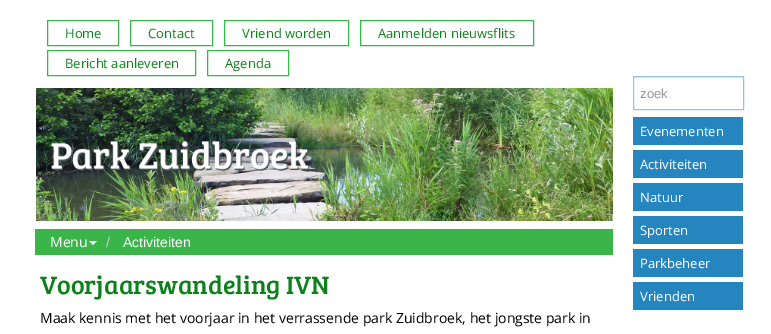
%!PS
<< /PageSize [771 334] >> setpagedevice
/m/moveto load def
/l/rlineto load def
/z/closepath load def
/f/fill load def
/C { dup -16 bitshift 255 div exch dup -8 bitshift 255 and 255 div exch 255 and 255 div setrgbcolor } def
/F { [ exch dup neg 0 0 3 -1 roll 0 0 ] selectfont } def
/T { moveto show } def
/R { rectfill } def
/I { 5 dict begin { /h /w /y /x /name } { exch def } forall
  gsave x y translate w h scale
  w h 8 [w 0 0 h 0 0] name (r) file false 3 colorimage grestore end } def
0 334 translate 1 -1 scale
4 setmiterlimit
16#FFFFFF C
0 0 771 334 R
16#3AB54A C
47.5 20.5 71 25 rectstroke
/OpenSans-Regular 13 F
16#0C811A C
(Home) 65 38 T
16#3AB54A C
130.5 20.5 82 25 rectstroke
16#0C811A C
(Contact) 148 38 T
16#3AB54A C
224.5 20.5 124 25 rectstroke
16#0C811A C
(Vriend worden) 242 38 T
16#3AB54A C
360.5 20.5 173 25 rectstroke
16#0C811A C
(Aanmelden nieuwsflits) 378 38 T
16#3AB54A C
47.5 50.5 148 25 rectstroke
16#0C811A C
(Bericht aanleveren) 65 68 T
16#3AB54A C
207.5 50.5 81 25 rectstroke
16#0C811A C
(Agenda) 225 68 T
(1.rgb) 36 88 577 133 I
16#3AB54A C
35 230 577 24 R
35 229 578 1 R
612 229 1 26 R
35 254 578 1 R
/OpenSans-Regular 14 F
16#FFFFFF C
(Menu) 50 247 T
89 241 m 8 0 l -4 4 l z f
/LiberationSans-Regular 14 F
16#CCCCCC C
(/) 106 247 T
16#FFFFFF C
(Activiteiten) 123 247 T
/BreeSerif-Regular 26 F
16#0C811A C
(Voorjaarswandeling IVN) 40 294 T
/OpenSans-Regular 14 F
16#000000 C
(Maak kennis met het voorjaar in het verrassende park Zuidbroek, het jongste park in) 40 323 T
16#ECECEC C
634 77 109 1 R
16#94C4E0 C
633.5 76.5 110 33 rectstroke
/LiberationSans-Regular 13 F
16#999999 C
(zoek) 640 98 T
16#2586BF C
633 117 110 28 R
/OpenSans-Regular 13 F
16#FFFFFF C
(Evenementen) 640 136 T
16#2586BF C
633 150 110 28 R
16#FFFFFF C
(Activiteiten) 640 169 T
16#2586BF C
633 183 110 28 R
16#FFFFFF C
(Natuur) 640 202 T
16#2586BF C
633 216 110 28 R
16#FFFFFF C
(Sporten) 640 235 T
16#2586BF C
633 249 110 28 R
16#FFFFFF C
(Parkbeheer) 640 268 T
16#2586BF C
633 282 110 28 R
16#FFFFFF C
(Vrienden) 640 301 T
showpage
